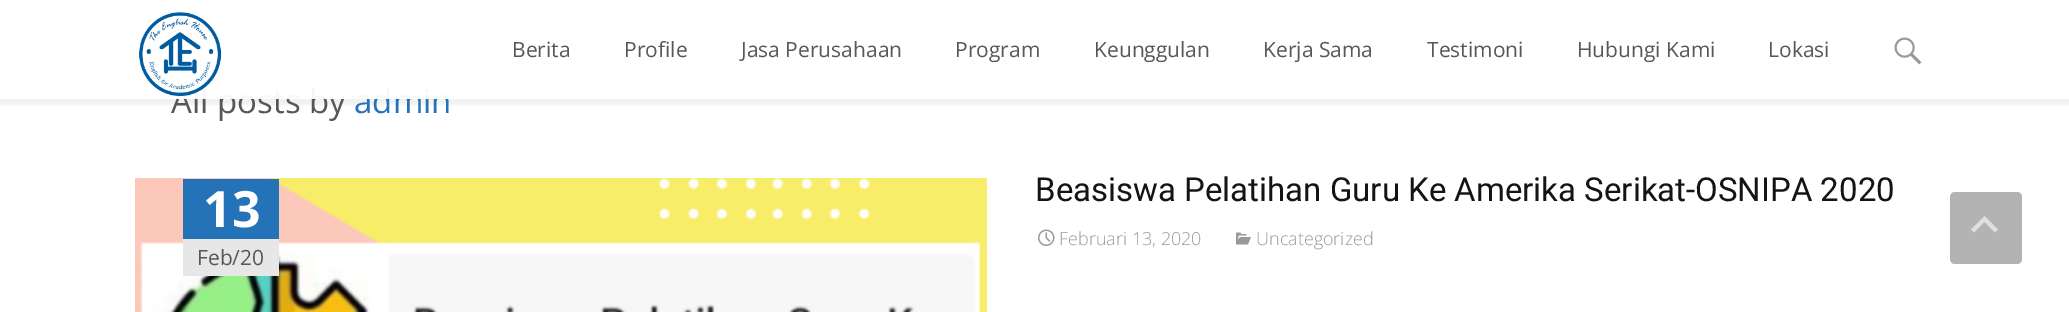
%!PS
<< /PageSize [2069 312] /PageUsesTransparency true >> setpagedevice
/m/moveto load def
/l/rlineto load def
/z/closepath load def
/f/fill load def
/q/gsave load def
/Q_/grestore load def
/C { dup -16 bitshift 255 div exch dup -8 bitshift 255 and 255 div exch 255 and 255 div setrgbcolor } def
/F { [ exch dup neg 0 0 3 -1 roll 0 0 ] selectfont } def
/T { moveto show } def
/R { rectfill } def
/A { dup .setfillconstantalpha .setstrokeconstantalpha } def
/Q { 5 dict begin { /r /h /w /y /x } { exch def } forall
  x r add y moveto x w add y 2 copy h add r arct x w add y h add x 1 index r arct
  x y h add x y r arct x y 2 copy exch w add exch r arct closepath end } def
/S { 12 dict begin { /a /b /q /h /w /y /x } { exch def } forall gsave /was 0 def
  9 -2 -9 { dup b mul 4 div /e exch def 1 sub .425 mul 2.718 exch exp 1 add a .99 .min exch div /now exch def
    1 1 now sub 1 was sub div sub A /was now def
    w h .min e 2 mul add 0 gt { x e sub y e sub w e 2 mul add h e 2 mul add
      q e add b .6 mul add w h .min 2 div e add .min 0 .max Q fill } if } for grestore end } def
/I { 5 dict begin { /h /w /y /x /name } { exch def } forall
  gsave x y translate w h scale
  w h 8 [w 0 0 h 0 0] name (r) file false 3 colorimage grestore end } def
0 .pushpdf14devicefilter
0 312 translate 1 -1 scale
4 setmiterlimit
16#FFFFFF C
0 0 2069 312 R
q
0 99 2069 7 rectclip
16#000000 C
-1 3 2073 102 0 1.5 .06 S
Q_
/OpenSans-Regular 33 F
16#575757 C
(All posts by) 171 113 T
16#2472B7 C
(admin) 354 113 T
0.95 A
16#FFFFFF C
176 87 273 12 R
1 A
(1.rgb) 139 12 83 84 I
/OpenSans-Regular 21 F
16#575757 C
(Berita) 512 57 T
(Profile) 624 57 T
(Jasa Perusahaan) 741 57 T
(Program) 955 57 T
(Keunggulan) 1094 57 T
(Kerja Sama) 1263 57 T
(Testimoni) 1427 57 T
(Hubungi Kami) 1577 57 T
(Lokasi) 1768 57 T
(2.rgb) 1894 37 28 28 I
(3.rgb) 135 178 852 134 I
16#2472B7 C
183 179 96 60 R
/OpenSans-Bold 50 F
16#FFFFFF C
(13) 203 227 T
16#E7E7E7 C
183 239 96 37 R
/OpenSans-Regular 21 F
16#575757 C
(Feb/20) 197 265 T
/Roboto-Regular 33 F
16#141412 C
(Beasiswa Pelatihan Guru Ke Amerika Serikat-OSNIPA 2020) 1035 201 T
(4.rgb) 1038 229 17 17 I
/OpenSans-Light 18 F
16#999999 C
(Februari 13, 2020) 1059 245 T
(5.rgb) 1236 232 15 13 I
(Uncategorized) 1256 245 T
16#B3B3B3 C
1950 192 72 72 5 Q f
16#DFDFDF C
1971 229.5 m 13.5 -13.5 l 13.5 13.5 l -3 3 l -10.5 -10.5 l -10.5 10.5 l z f
.poppdf14devicefilter showpage
